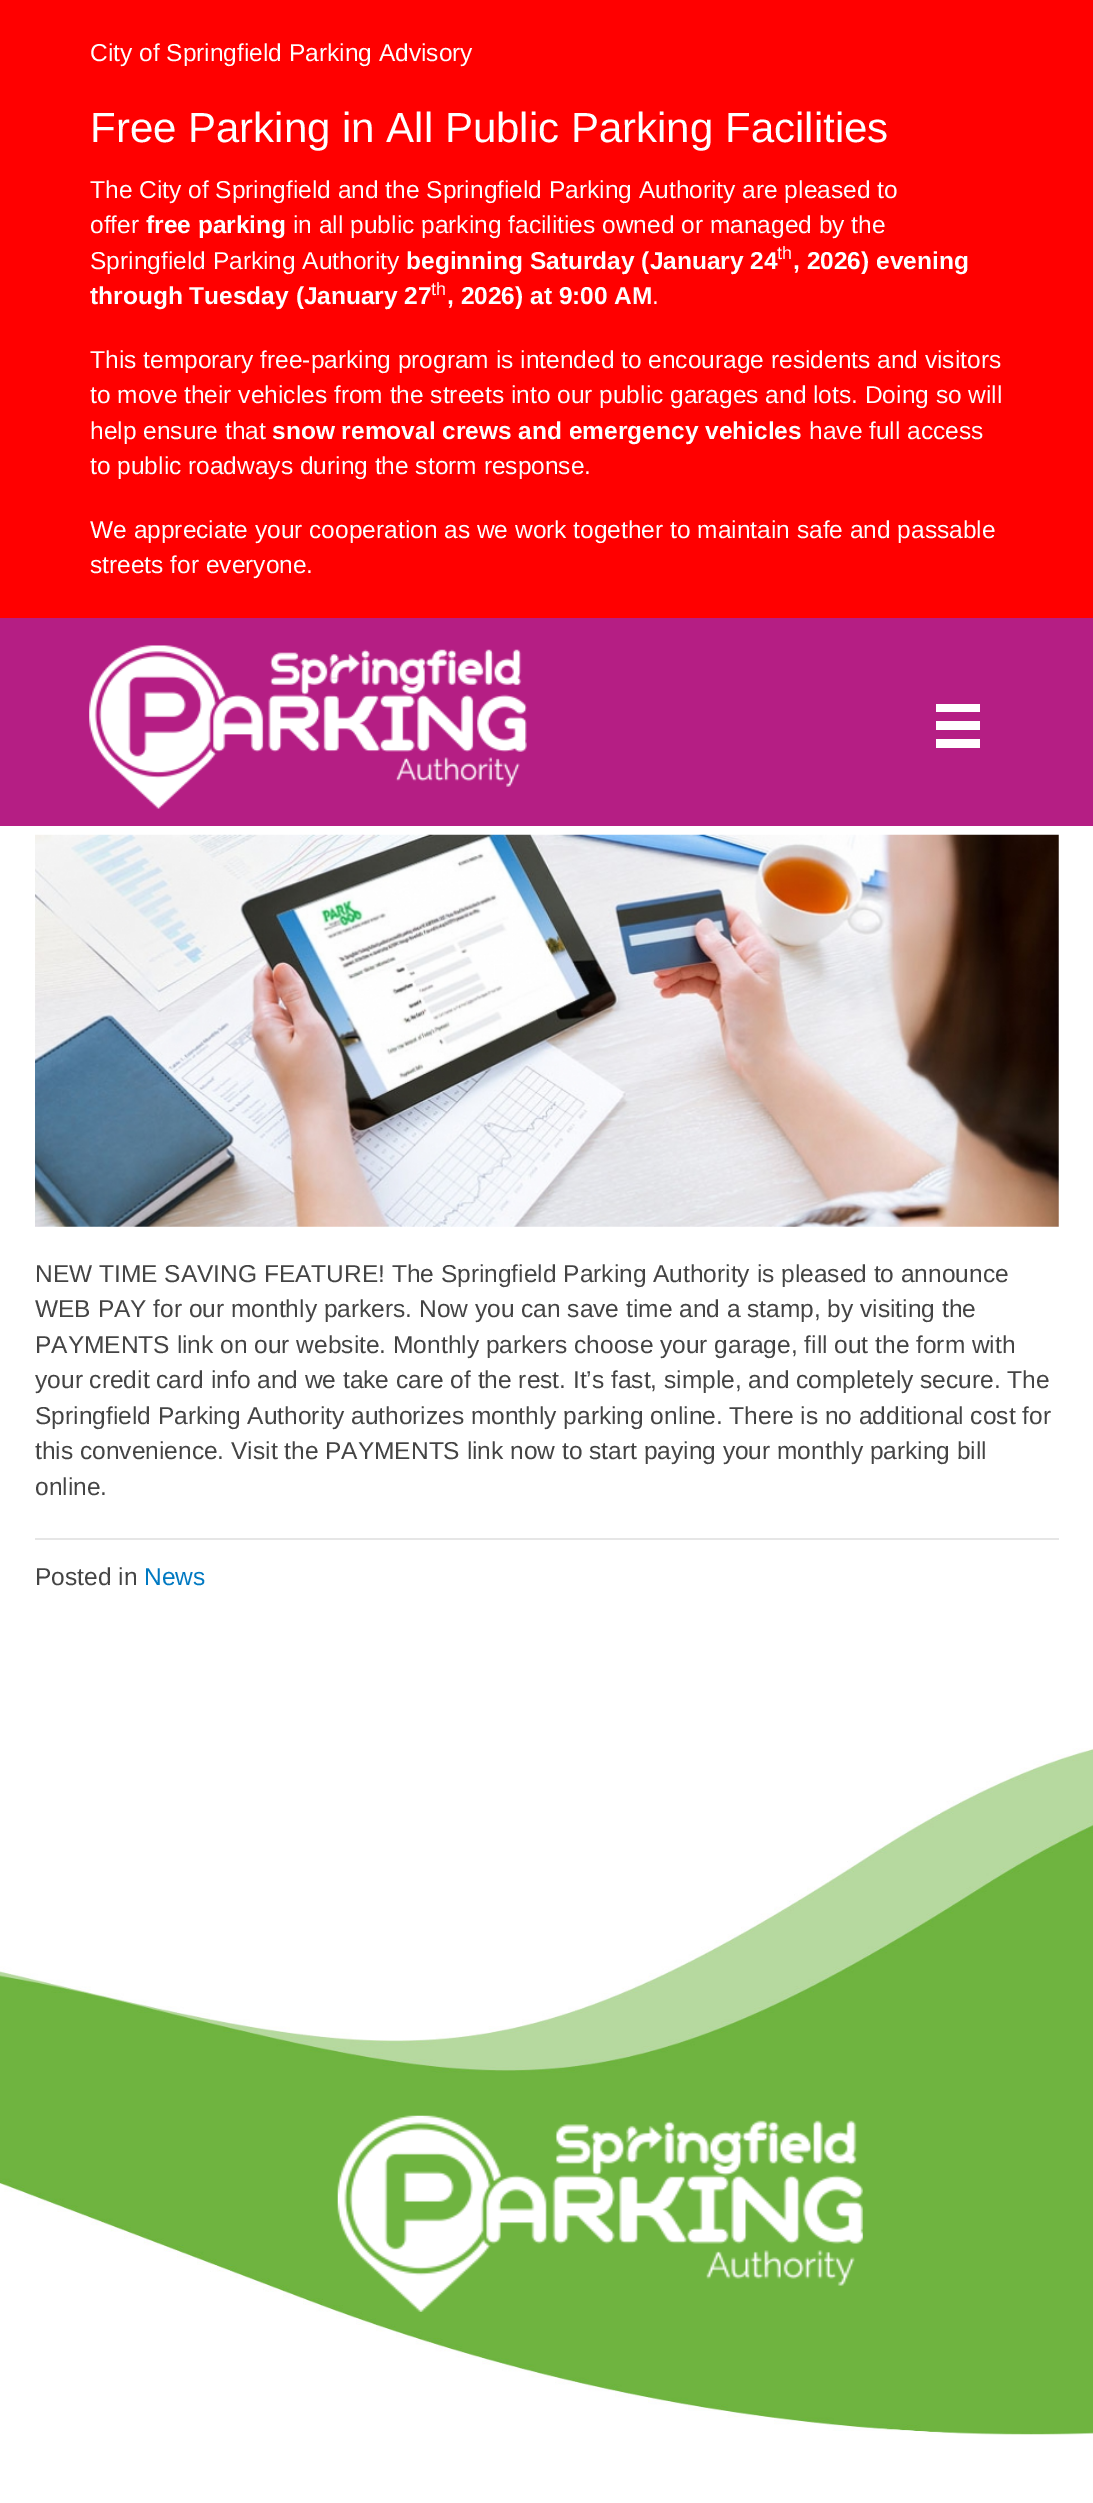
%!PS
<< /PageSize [1093 2503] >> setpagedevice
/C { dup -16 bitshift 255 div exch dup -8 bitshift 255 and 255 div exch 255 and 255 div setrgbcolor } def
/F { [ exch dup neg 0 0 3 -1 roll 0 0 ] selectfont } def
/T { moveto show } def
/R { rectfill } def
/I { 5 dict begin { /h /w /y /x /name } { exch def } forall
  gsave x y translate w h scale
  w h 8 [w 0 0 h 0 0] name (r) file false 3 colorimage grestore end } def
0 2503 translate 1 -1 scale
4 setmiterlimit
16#FFFFFF C
0 0 1093 2503 R
16#FF0000 C
0 0 1093 618 R
/LiberationSans-Regular 24.5 F
16#FFFFFF C
(City of Springfield Parking Advisory) 90 61 T
/LiberationSans-Regular 42 F
(Free Parking in All Public Parking Facilities) 90 142 T
/LiberationSans-Regular 24.5 F
(The City of Springfield and the Springfield Parking Authority are pleased to) 90 198 T
(offer) 90 233 T
/LiberationSans-Bold 24.5 F
(free parking) 146 233 T
/LiberationSans-Regular 24.5 F
(in all public parking facilities owned or managed by the) 293 233 T
(Springfield Parking Authority) 90 269 T
/LiberationSans-Bold 24.5 F
(beginning Saturday \(January 24) 406 269 T
/LiberationSans-Regular 18 F
(th) 777 259 T
/LiberationSans-Bold 24.5 F
(, 2026\) evening) 793 269 T
(through Tuesday \(January 27) 90 304 T
/LiberationSans-Regular 18 F
(th) 431 295 T
/LiberationSans-Bold 24.5 F
(, 2026\) at 9:00 AM) 447 304 T
/LiberationSans-Regular 24.5 F
(.) 652 304 T
(This temporary free-parking program is intended to encourage residents and visitors) 90 368 T
(to move their vehicles from the streets into our public garages and lots. Doing so will) 90 403 T
(help ensure that) 90 439 T
/LiberationSans-Bold 24.5 F
(snow removal crews and emergency vehicles) 272 439 T
/LiberationSans-Regular 24.5 F
(have full access) 809 439 T
(to public roadways during the storm response.) 90 474 T
(We appreciate your cooperation as we work together to maintain safe and passable) 90 538 T
(streets for everyone.) 90 573 T
16#B51E84 C
0 618 1093 208 R
(1.rgb) 89 645 438 164 I
16#FFFFFF C
936 704 44 8 R
936 721 44 9 R
936 739 44 9 R
(2.rgb) 35 834 1024 393 I
16#444444 C
(NEW TIME SAVING FEATURE! The Springfield Parking Authority is pleased to announce) 35 1282 T
(WEB PAY for our monthly parkers. Now you can save time and a stamp, by visiting the) 35 1317 T
(PAYMENTS link on our website. Monthly parkers choose your garage, fill out the form with) 35 1353 T
(your credit card info and we take care of the rest. It’s fast, simple, and completely secure. The) 35 1388 T
(Springfield Parking Authority authorizes monthly parking online. There is no additional cost for) 35 1424 T
(this convenience. Visit the PAYMENTS link now to start paying your monthly parking bill) 35 1459 T
(online.) 35 1495 T
16#E6E6E6 C
35 1538 1024 2 R
16#444444 C
(Posted in) 35 1585 T
16#0079C2 C
(News) 144 1585 T
(3.rgb) 0 1748 1093 687 I
(4.rgb) 337 2115 526 197 I
showpage
